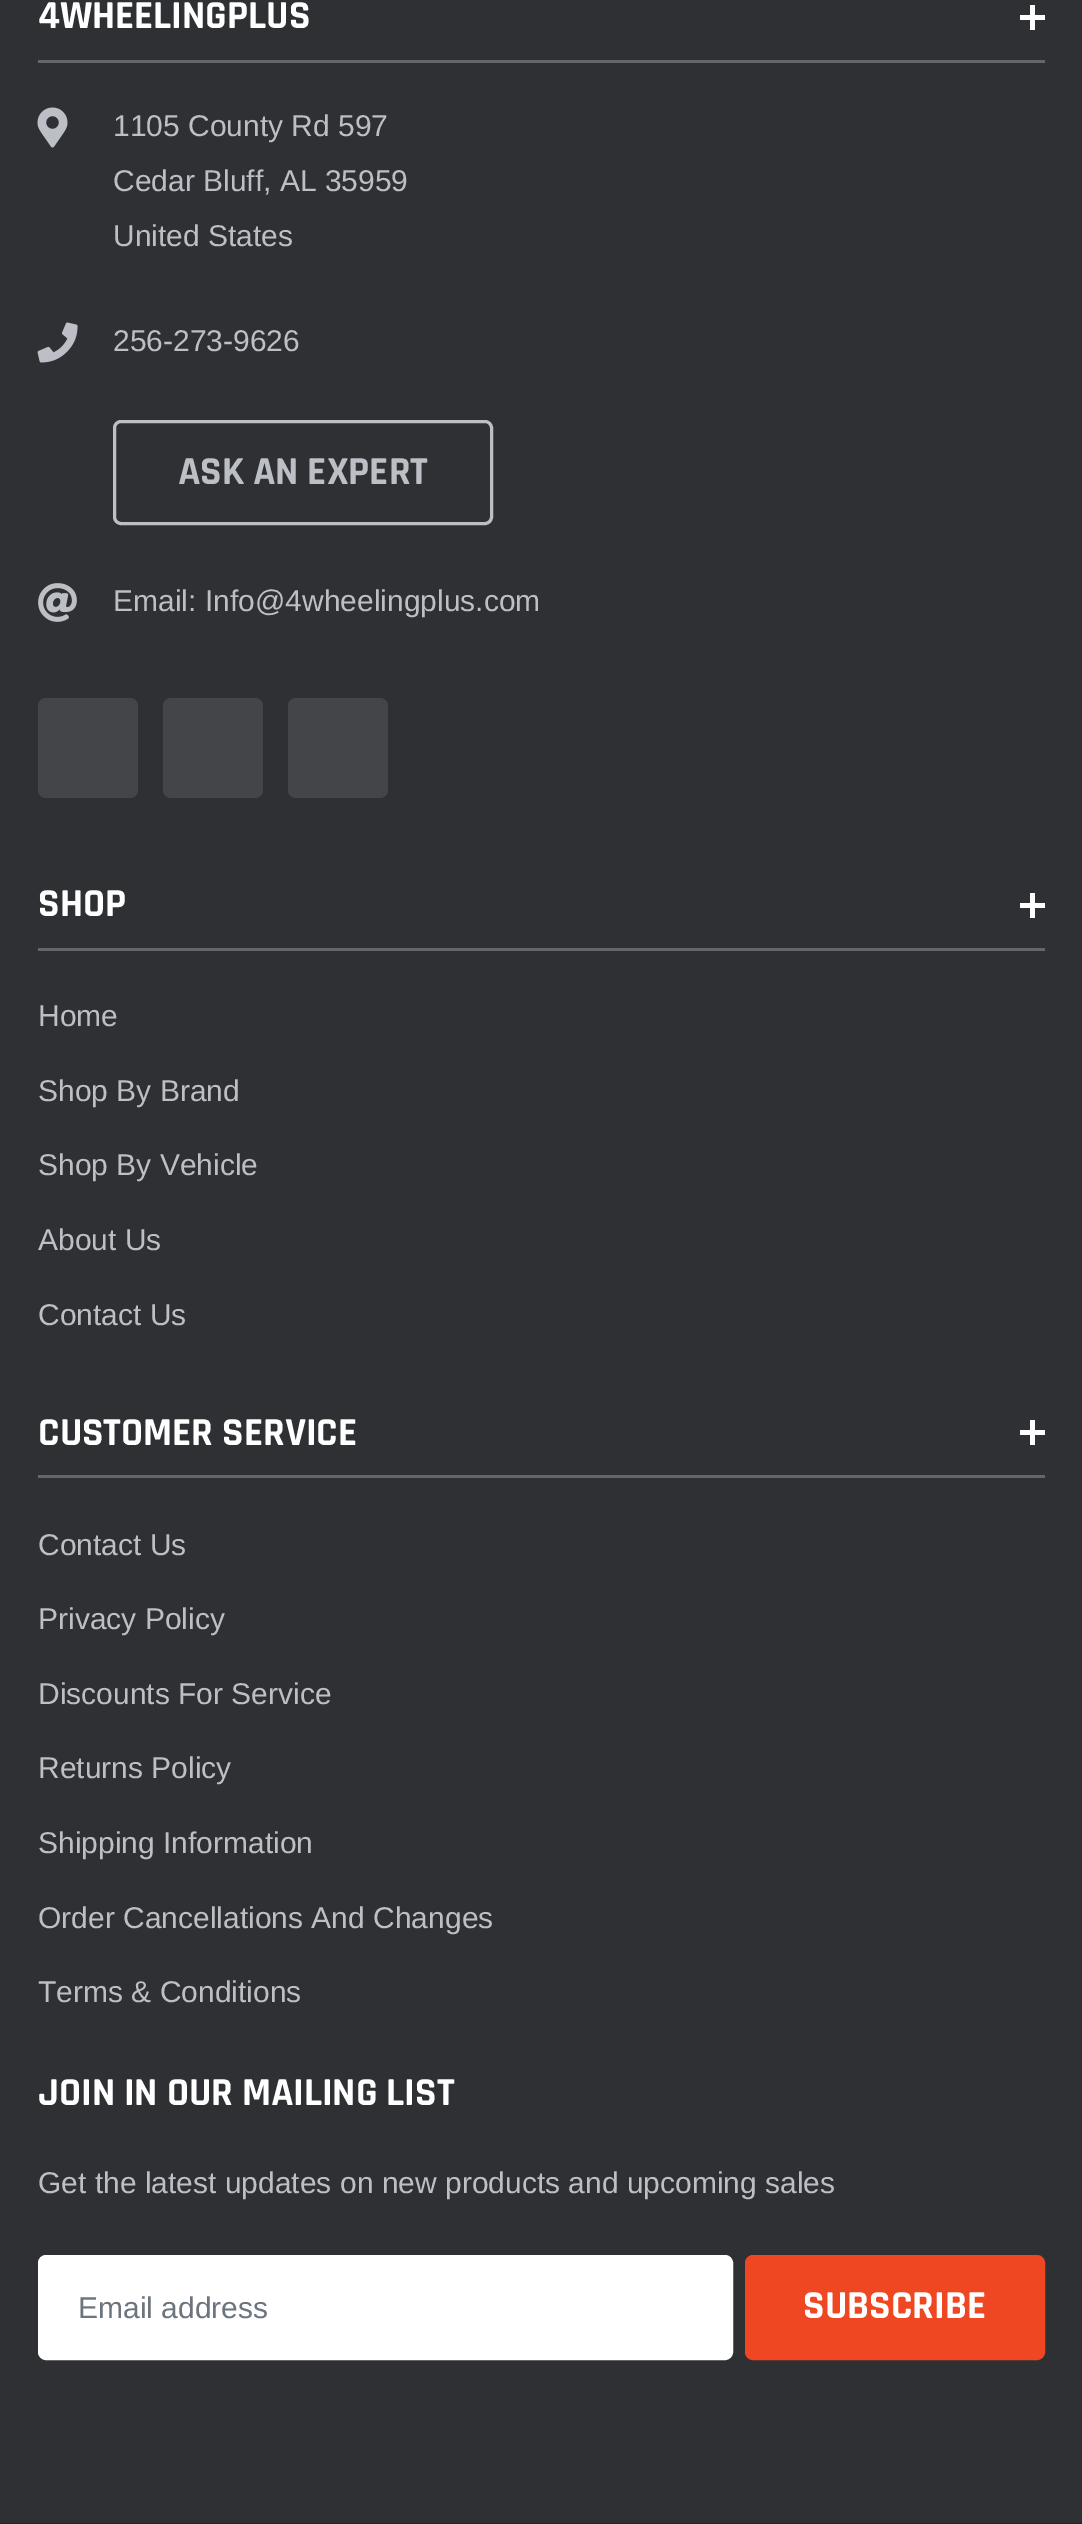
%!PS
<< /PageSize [1082 2524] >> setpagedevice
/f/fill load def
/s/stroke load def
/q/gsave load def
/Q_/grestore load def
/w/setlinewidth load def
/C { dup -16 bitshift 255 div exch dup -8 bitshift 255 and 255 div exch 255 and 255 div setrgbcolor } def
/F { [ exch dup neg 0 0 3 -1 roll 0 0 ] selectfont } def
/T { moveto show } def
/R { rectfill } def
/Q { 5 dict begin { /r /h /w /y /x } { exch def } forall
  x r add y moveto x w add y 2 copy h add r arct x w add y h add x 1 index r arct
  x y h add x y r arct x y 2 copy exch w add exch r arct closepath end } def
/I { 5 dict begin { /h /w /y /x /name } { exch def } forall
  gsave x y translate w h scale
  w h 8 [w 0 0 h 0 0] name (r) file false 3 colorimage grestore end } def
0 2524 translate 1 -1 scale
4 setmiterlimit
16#2E3034 C
0 0 1082 2524 R
16#64666A C
38 60 1007 3 R
/Rajdhani-Bold 40 F
16#FFFFFF C
(4WHEELINGPLUS) 38 28 T
1030 5 5 25 R
1020 15 25 5 R
(1.rgb) 37 107 31 41 I
/Arimo-Regular 30 F
16#BCBFC5 C
(1105 County Rd 597) 113 136 T
(Cedar Bluff, AL 35959) 113 191 T
(United States) 113 246 T
(2.rgb) 37 322 41 41 I
(256-273-9626) 113 351 T
3 w
114.5 421.5 377 102 6.5 Q s
/Rajdhani-Bold 40 F
(ASK AN EXPERT) 178 484 T
(3.rgb) 38 583 39 39 I
/Arimo-Regular 30 F
(Email: Info@4wheelingplus.com) 113 611 T
16#434548 C
38 698 100 100 8 Q f
163 698 100 100 8 Q f
288 698 100 100 8 Q f
16#64666A C
38 948 1007 3 R
/Rajdhani-Bold 40 F
16#FFFFFF C
(SHOP) 38 916 T
1030 893 5 25 R
1020 903 25 5 R
/Arimo-Regular 30 F
16#BCBFC5 C
(Home) 38 1026 T
(Shop By Brand) 38 1101 T
(Shop By Vehicle) 38 1175 T
(About Us) 38 1250 T
(Contact Us) 38 1325 T
16#64666A C
38 1475 1007 3 R
/Rajdhani-Bold 40 F
16#FFFFFF C
(CUSTOMER SERVICE) 38 1445 T
1030 1420 5 25 R
1020 1430 25 5 R
/Arimo-Regular 30 F
16#BCBFC5 C
(Contact Us) 38 1555 T
(Privacy Policy) 38 1629 T
(Discounts For Service) 38 1704 T
(Returns Policy) 38 1778 T
(Shipping Information) 38 1853 T
(Order Cancellations And Changes) 38 1928 T
(Terms & Conditions) 38 2002 T
/Rajdhani-Bold 40 F
16#FFFFFF C
(JOIN IN OUR MAILING LIST) 38 2105 T
/Arimo-Regular 30 F
16#BCBFC5 C
(Get the latest updates on new products and upcoming sales) 38 2193 T
16#FFFFFF C
39.5 2256.5 692 102 6.5 Q q f Q_
s
16#6C757D C
(Email address) 78 2318 T
16#F04723 C
746.5 2256.5 297 102 6.5 Q q f Q_
s
/Rajdhani-Bold 40 F
16#FFFFFF C
(SUBSCRIBE) 803 2318 T
16#222326 C
0 2523 1082 1 R
showpage
